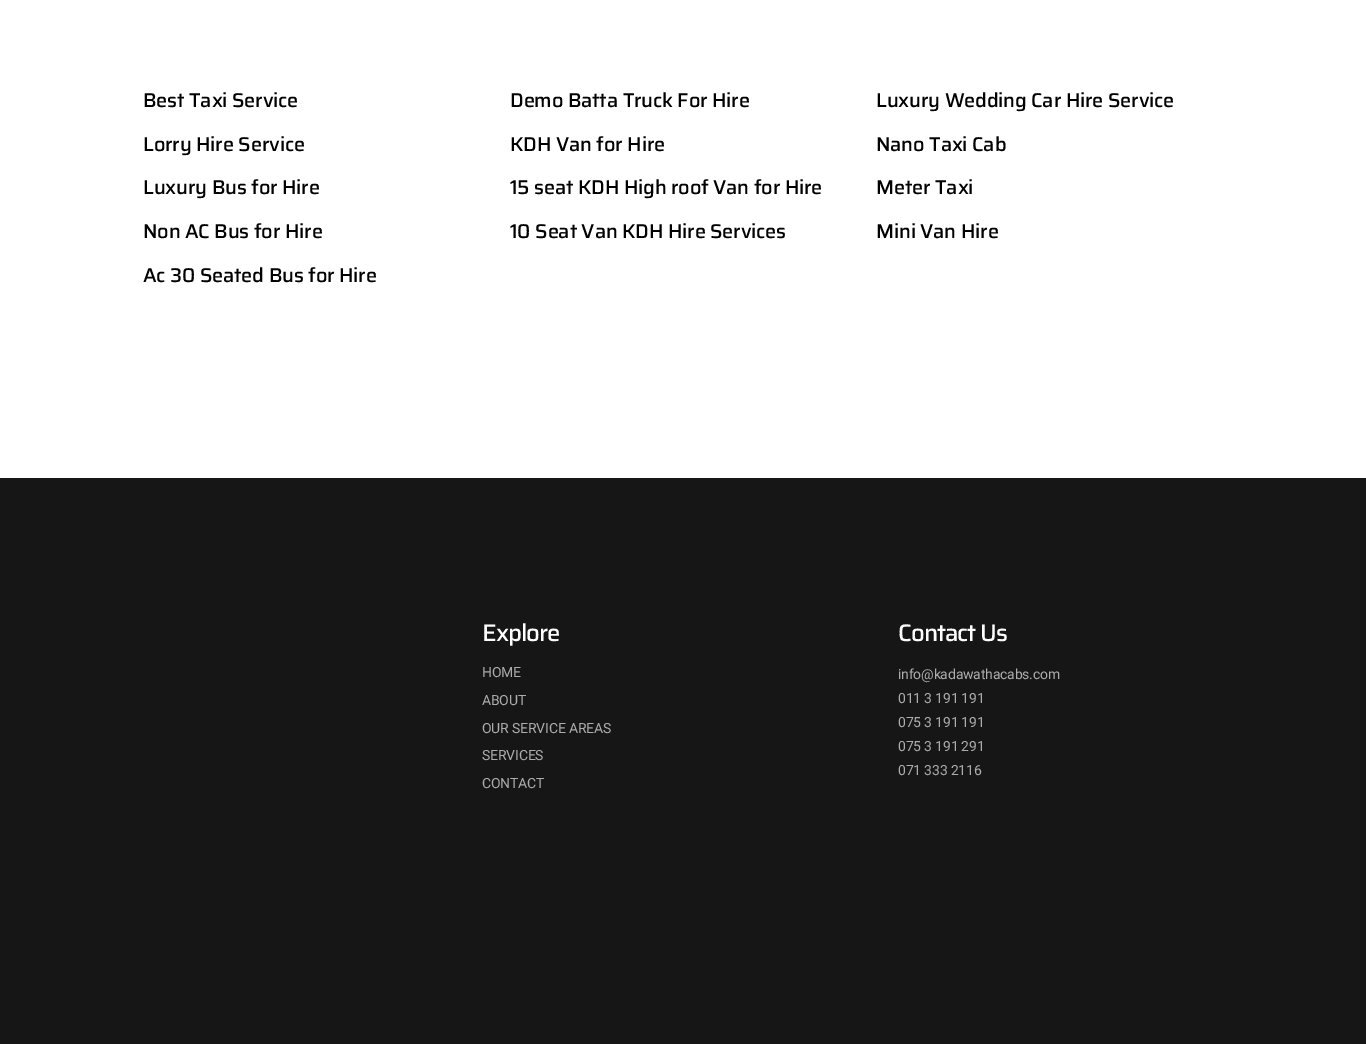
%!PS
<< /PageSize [1366 1044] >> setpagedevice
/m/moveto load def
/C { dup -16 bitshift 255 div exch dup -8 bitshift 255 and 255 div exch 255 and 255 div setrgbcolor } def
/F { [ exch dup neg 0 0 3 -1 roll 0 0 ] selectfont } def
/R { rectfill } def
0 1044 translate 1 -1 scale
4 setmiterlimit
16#FFFFFF C
0 0 1366 1044 R
/Saira-Thin 20 F
16#000000 C
143 107 m -.2 0 (Best Taxi Service) ashow
143 151 m -.2 0 (Lorry Hire Service) ashow
143 194 m -.2 0 (Luxury Bus for Hire) ashow
143 238 m -.2 0 (Non AC Bus for Hire) ashow
143 282 m -.2 0 (Ac 30 Seated Bus for Hire) ashow
510 107 m -.2 0 (Demo Batta Truck For Hire) ashow
510 151 m -.2 0 (KDH Van for Hire) ashow
510 194 m -.2 0 (15 seat KDH High roof Van for Hire) ashow
510 238 m -.2 0 (10 Seat Van KDH Hire Services) ashow
876 107 m -.2 0 (Luxury Wedding Car Hire Service) ashow
876 151 m -.2 0 (Nano Taxi Cab) ashow
876 194 m -.2 0 (Meter Taxi) ashow
876 238 m -.2 0 (Mini Van Hire) ashow
16#161616 C
0 478 1366 566 R
/Saira-Thin 24 F
16#FFFFFF C
482 641 m -1 0 (Explore) ashow
/Roboto-Regular 14 F
16#ADADAD C
482 677 m -.2 0 (HOME) ashow
482 705 m -.2 0 (ABOUT) ashow
482 733 m -.2 0 (OUR SERVICE AREAS) ashow
482 760 m -.2 0 (SERVICES) ashow
482 788 m -.2 0 (CONTACT) ashow
/Saira-Thin 24 F
16#FFFFFF C
898 641 m -1 0 (Contact Us) ashow
/Roboto-Regular 14 F
16#ADADAD C
898 679 m -.2 0 (info@kadawathacabs.com) ashow
898 703 m -.2 0 (011 3 191 191) ashow
898 727 m -.2 0 (075 3 191 191) ashow
898 751 m -.2 0 (075 3 191 291) ashow
898 775 m -.2 0 (071 333 2116) ashow
showpage
